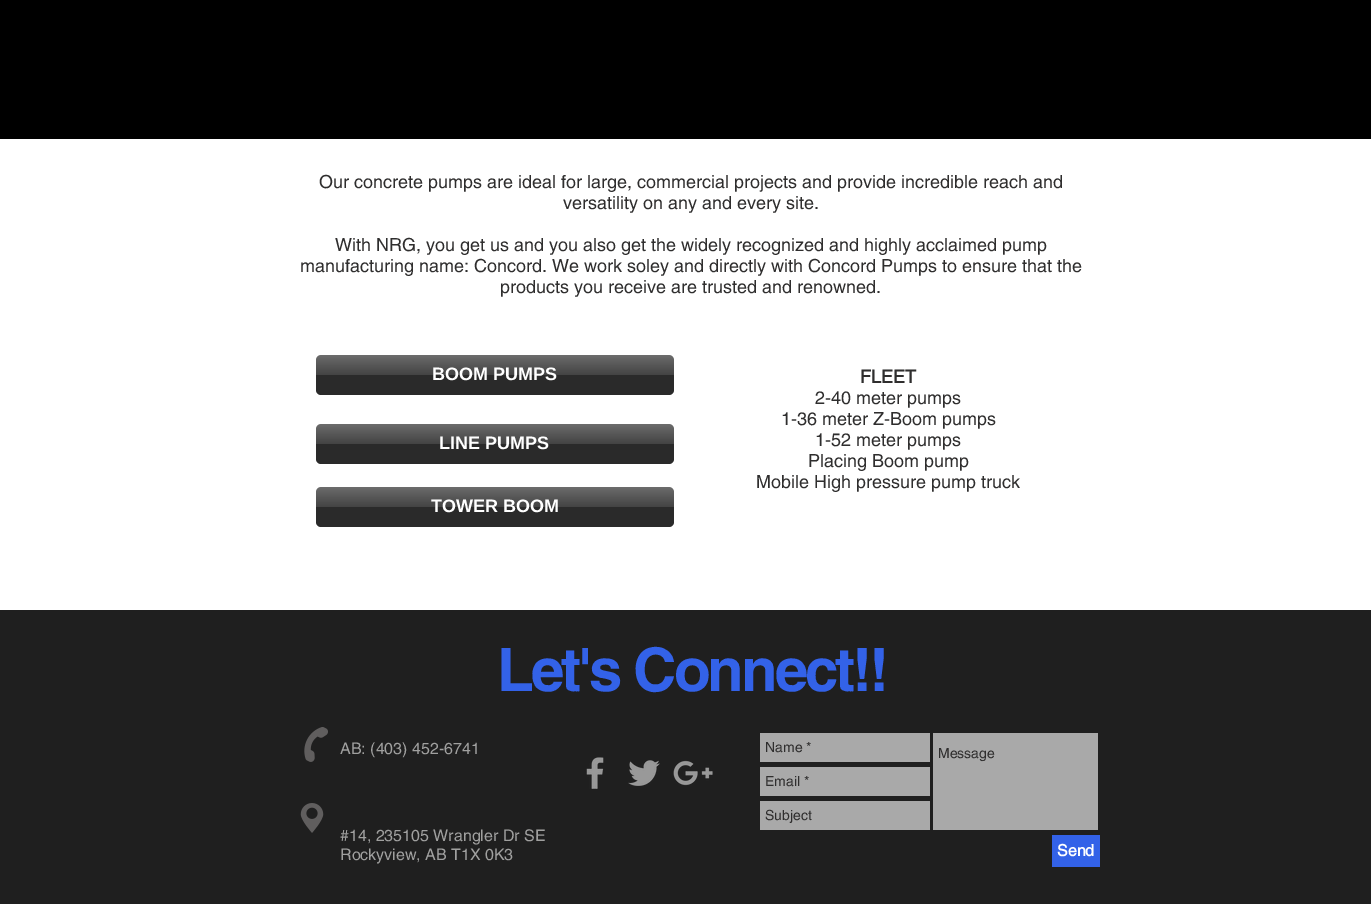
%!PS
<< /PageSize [1371 904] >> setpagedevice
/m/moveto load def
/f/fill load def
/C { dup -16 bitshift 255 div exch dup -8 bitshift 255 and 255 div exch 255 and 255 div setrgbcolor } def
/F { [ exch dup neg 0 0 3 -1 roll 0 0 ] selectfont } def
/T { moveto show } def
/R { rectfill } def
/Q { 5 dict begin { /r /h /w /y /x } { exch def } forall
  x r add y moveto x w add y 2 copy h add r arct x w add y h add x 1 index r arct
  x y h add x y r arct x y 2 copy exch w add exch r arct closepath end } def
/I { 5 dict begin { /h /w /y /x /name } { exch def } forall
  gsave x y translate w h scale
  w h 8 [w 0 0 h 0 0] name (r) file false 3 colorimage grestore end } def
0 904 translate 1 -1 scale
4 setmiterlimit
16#FFFFFF C
0 0 1371 904 R
16#000000 C
0 0 1371 139 R
/helvetica-Regular 18 F
16#2F2E2E C
(Our concrete pumps are ideal for large, commercial projects and provide incredible reach and) 319 188 T
(versatility on any and every site.) 563 209 T
(With NRG, you get us and you also get the widely recognized and highly acclaimed pump) 335 251 T
(manufacturing name: Concord. We work soley and directly with Concord Pumps to ensure that the) 300 272 T
(products you receive are trusted and renowned.) 500 293 T
16#2A2A2A C
316 355 358 40 5 Q f
(1.rgb) 316 355 358 20 I
/LiberationSans-Bold 18 F
16#FFFFFF C
(BOOM PUMPS) 432 380 T
/helvetica-Bold 18 F
16#2F2E2E C
(FLEET) 860 383 T
/helvetica-Regular 18 F
(2-40 meter pumps) 815 404 T
(1-36 meter Z-Boom pumps) 781 425 T
(1-52 meter pumps) 815 446 T
(Placing Boom pump) 808 467 T
(Mobile High pressure pump truck) 756 488 T
16#2A2A2A C
316 424 358 40 5 Q f
(1.rgb) 316 424 358 20 I
/LiberationSans-Bold 18 F
16#FFFFFF C
(LINE PUMPS) 439 449 T
16#2A2A2A C
316 487 358 40 5 Q f
(1.rgb) 316 487 358 20 I
16#FFFFFF C
(TOWER BOOM) 431 512 T
16#1F1F1F C
0 610 1371 294 R
/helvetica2-Bold 60 F
16#3362E8 C
497 691 m -3 0 (Let's Connect!!) ashow
(2.rgb) 304 727 24 35 I
/helvetica-Regular 16 F
16#A0A09F C
(AB: \(403\) 452-6741) 340 754 T
16#A9A9A9 C
760 733 170 29 R
/helvetica-Regular 14 F
16#2F2E2E C
(Name *) 765 752 T
16#A9A9A9 C
933 733 165 97 R
16#2F2E2E C
(Message) 938 758 T
16#A9A9A9 C
760 767 170 29 R
16#2F2E2E C
(Email *) 765 786 T
16#A9A9A9 C
760 801 170 29 R
16#2F2E2E C
(Subject) 765 820 T
16#3362E8 C
1052 835 48 32 R
/helvetica-Bold 16 F
16#FFFFFF C
(Send) 1057 856 T
(3.rgb) 586 757 18 32 I
(4.rgb) 628 760 32 26 I
(5.rgb) 673 760 40 26 I
(6.rgb) 300 803 24 30 I
/helvetica-Regular 16 F
16#A0A09F C
(#14, 235105 Wrangler Dr SE) 340 841 T
(Rockyview, AB T1X 0K3) 340 860 T
showpage
